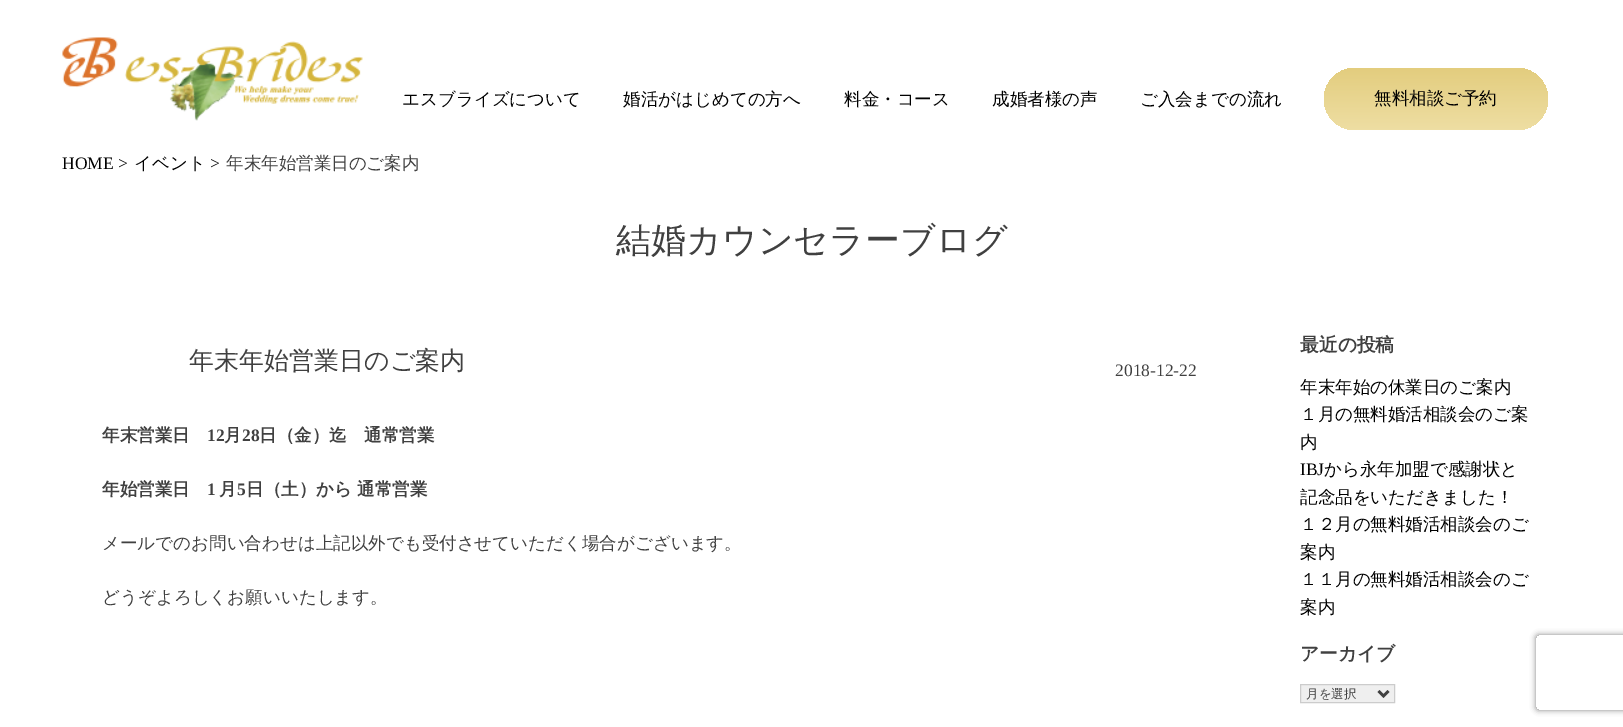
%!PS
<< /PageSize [1623 727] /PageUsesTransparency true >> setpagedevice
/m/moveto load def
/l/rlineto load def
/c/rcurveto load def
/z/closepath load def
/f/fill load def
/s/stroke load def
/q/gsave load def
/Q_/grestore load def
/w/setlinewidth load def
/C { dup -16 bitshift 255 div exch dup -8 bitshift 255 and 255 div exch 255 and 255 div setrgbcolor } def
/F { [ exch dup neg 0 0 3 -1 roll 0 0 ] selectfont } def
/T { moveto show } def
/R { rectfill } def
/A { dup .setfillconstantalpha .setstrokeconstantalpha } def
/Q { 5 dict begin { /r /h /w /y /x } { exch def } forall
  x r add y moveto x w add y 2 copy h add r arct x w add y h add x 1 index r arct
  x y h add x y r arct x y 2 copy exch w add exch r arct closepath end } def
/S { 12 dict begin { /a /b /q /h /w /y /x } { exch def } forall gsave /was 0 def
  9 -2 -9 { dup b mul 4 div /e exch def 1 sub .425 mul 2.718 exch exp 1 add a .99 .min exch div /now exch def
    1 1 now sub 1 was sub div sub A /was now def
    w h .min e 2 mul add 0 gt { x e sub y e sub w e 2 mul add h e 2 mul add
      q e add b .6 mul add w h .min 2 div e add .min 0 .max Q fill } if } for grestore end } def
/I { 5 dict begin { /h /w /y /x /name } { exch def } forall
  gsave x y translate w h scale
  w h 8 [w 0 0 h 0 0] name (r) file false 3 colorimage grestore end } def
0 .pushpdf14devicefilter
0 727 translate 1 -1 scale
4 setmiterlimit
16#FFFFFF C
0 0 1623 727 R
(1.rgb) 62 37 301 84 I
/WenQuanYiZenHei-Medium 17.5 F
16#000000 C
(エスブライズについて) 402 105 T
(婚活がはじめての方へ) 623 105 T
(料金・コース) 844 105 T
(成婚者様の声) 992 105 T
(ご入会までの流れ) 1140 105 T
q 1324 68 224 62 31 Q clip newpath
<< /ShadingType 2 /ColorSpace /DeviceRGB /Coords [1436 67 1436 130] /Extend [true true] /Function << /FunctionType 2 /Domain [0 1] /C0 [.89 .804 .49] /C1 [.933 .871 .639] /N 1 >> >> shfill Q_
(無料相談ご予約) 1374 104 T
/LiberationSerif-Regular 17.5 F
(HOME >) 62 169 T
/WenQuanYiZenHei-Medium 17.5 F
(イベント) 134 169 T
/LiberationSerif-Regular 17.5 F
(>) 210 169 T
/WenQuanYiZenHei-Medium 17.5 F
16#404040 C
(年末年始営業日のご案内) 226 169 T
/WenQuanYiZenHei-Medium 35 F
(結婚カウンセラーブログ) 616 252 T
/WenQuanYiZenHei-Medium 25 F
(年末年始営業日のご案内) 189 369 T
/LiberationSerif-Regular 17.5 F
(2018-12-22) 1115 376 T
/WenQuanYiZenHei-Bold 17.5 F
(年末営業日) 102 441 T
/LiberationSerif-Bold 17.5 F
(12) 207 441 T
/WenQuanYiZenHei-Bold 17.5 F
(月) 224 441 T
/LiberationSerif-Bold 17.5 F
(28) 242 441 T
/WenQuanYiZenHei-Bold 17.5 F
(日（金）迄　通常営業) 259 441 T
(年始営業日) 102 495 T
/LiberationSerif-Bold 17.5 F
(1) 207 495 T
/WenQuanYiZenHei-Bold 17.5 F
(月) 219 495 T
/LiberationSerif-Bold 17.5 F
(5) 237 495 T
/WenQuanYiZenHei-Bold 17.5 F
(日（土）から 通常営業) 246 495 T
/WenQuanYiZenHei-Medium 17.5 F
(メールでのお問い合わせは上記以外でも受付させていただく場合がございます。) 102 549 T
(どうぞよろしくお願いいたします。) 102 603 T
/WenQuanYiZenHei-Bold 18.75 F
(最近の投稿) 1300 351 T
/WenQuanYiZenHei-Medium 17.5 F
16#000000 C
(年末年始の休業日のご案内) 1300 393 T
(１月の無料婚活相談会のご案) 1300 420 T
(内) 1300 448 T
/LiberationSerif-Regular 17.5 F
(IBJ) 1300 475 T
/WenQuanYiZenHei-Medium 17.5 F
(から永年加盟で感謝状と) 1324 475 T
(記念品をいただきました！) 1300 503 T
(１２月の無料婚活相談会のご) 1300 530 T
(案内) 1300 558 T
(１１月の無料婚活相談会のご) 1300 585 T
(案内) 1300 613 T
/WenQuanYiZenHei-Bold 18.75 F
16#404040 C
(アーカイブ) 1300 660 T
16#EFEFEF C
1300.5 684.5 m 94 0 l 0 18 l -94 0 l z q f Q_
16#CCCCCC C
s
16#404040 C
2.5 w
1378.5 691 m 5 5 l 5 -5 l s
/WenQuanYiZenHei-Medium 12.5 F
(月を選択) 1306 698 T
q
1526 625 m 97 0 l 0 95 l -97 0 l z 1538.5 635 m 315 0 l 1.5 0 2.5 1 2.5 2.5 c 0 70 l 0 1.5 -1 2.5 -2.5 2.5 c -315 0 l -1.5 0 -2.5 -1 -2.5 -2.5 c 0 -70 l 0 -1.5 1 -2.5 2.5 -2.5 c z eoclip newpath
16#808080 C
1536 635 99 75 2.5 3 1 S
Q_
.poppdf14devicefilter showpage
